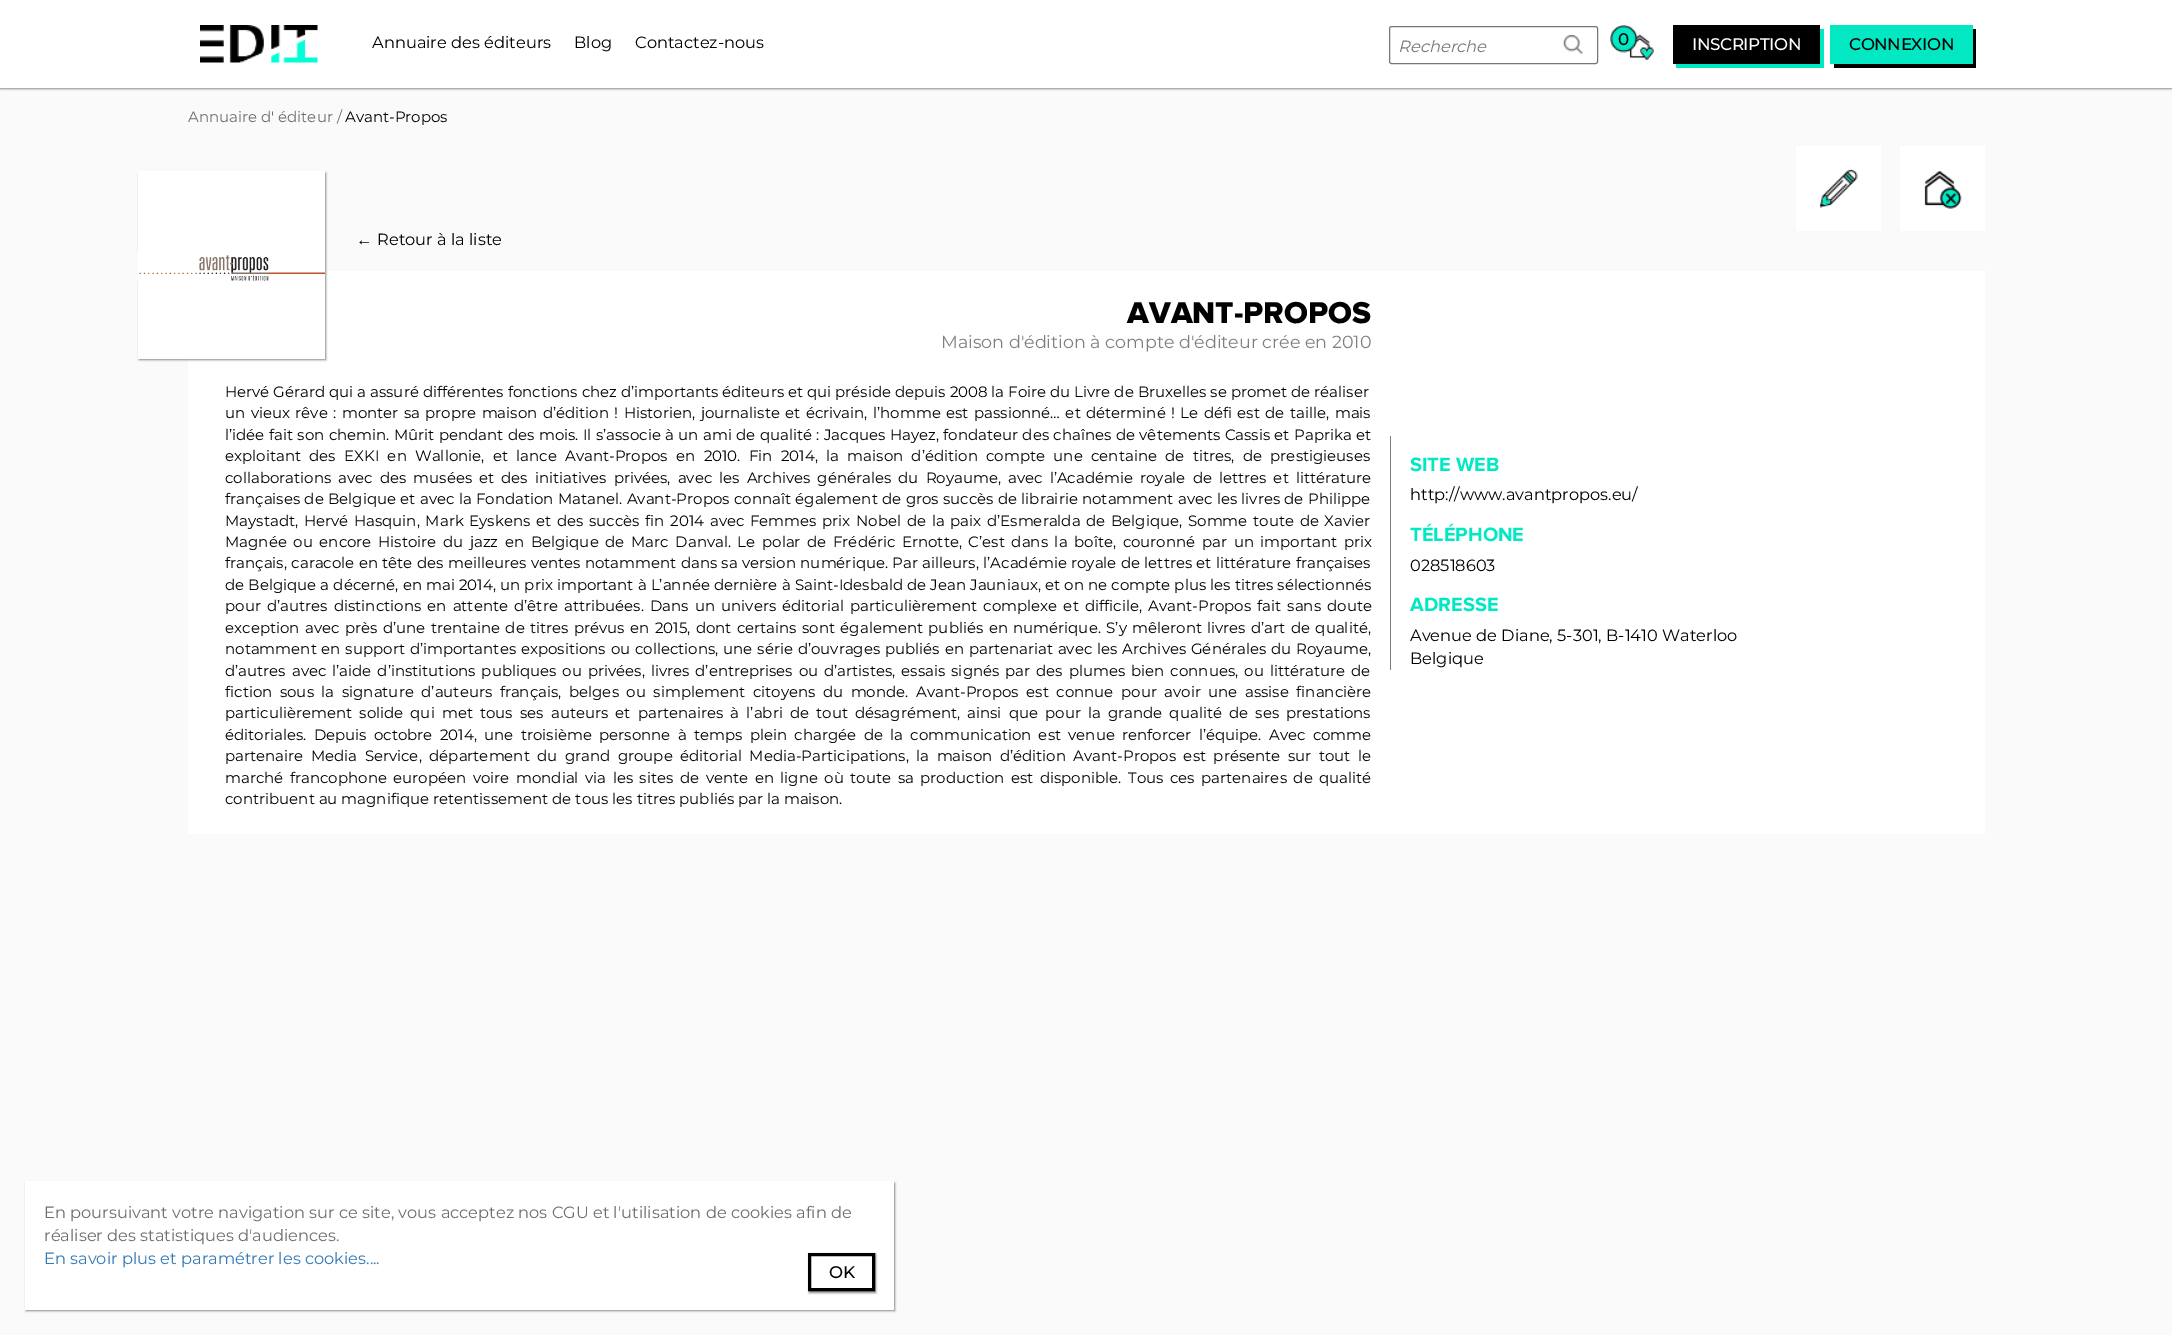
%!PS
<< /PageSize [2172 1335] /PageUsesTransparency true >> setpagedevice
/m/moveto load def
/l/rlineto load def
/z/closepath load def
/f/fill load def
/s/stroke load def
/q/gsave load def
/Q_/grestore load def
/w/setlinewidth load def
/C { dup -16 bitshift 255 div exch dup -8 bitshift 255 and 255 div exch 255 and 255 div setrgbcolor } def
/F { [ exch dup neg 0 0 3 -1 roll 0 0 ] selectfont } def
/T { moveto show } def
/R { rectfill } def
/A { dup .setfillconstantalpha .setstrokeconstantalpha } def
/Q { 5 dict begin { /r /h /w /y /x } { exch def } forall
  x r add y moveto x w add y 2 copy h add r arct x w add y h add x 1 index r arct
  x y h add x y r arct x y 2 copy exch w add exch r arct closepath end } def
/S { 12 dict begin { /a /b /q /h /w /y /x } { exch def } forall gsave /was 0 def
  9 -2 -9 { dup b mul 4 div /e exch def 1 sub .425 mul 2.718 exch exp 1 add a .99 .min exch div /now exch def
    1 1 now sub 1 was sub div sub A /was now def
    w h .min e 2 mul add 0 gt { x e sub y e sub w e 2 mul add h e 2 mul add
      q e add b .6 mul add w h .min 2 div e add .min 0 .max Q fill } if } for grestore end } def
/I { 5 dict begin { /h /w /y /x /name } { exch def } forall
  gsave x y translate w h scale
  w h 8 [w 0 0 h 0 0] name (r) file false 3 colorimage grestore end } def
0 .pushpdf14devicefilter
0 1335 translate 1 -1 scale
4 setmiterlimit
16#FAFAFA C
0 0 2172 1335 R
16#888888 C
0 1 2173 88 0 1 1 S
16#FFFFFF C
0 0 2172 88 R
(1.rgb) 200 25 118 38 I
(2.rgb) 1610 25 44 35 I
/Montserrat-Bold 16.25 F
16#000000 C
(0) 1618 45 T
16#02E8C3 C
1676 64 m 0 4 l 148 0 l 0 -39 l -4 0 l 0 35 l z f
16#000000 C
1673 25 147 39 R
16#FFFFFF C
(INSCRIPTION) 1692 50 T
16#000000 C
1834 64 m 0 4 l 142 0 l 0 -39 l -4 0 l 0 35 l z f
16#02E8C3 C
1830 25 143 39 R
16#000000 C
(CONNEXION) 1849 50 T
16#888888 C
26 1183 869 128 0 1 1 S
16#FFFFFF C
25 1181 869 129 R
/Montserrat-Thin 16.25 F
16#6E6E6E C
(En poursuivant votre navigation sur ce site, vous acceptez nos CGU et l'utilisation de cookies afin de) 44 1218 T
(réaliser des statistiques d'audiences.) 44 1241 T
16#337AB7 C
(En savoir plus et paramétrer les cookies...) 44 1264 T
16#6E6E6E C
(.) 376 1264 T
q
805 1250 m 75 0 l 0 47 l -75 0 l z 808 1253 m 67 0 l 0 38 l -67 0 l z eoclip newpath
16#888888 C
809 1254 67 39 0 1 1 S
Q_
16#000000 C
3 w
809.5 1254.5 64 35 rectstroke
/Montserrat-Bold 16.25 F
(OK) 829 1278 T
16#767676 C
1 w
1389.5 26.5 208 37 2 Q s
/Montserrat-ThinItalic 16.25 F
16#757575 C
(Recherche) 1398 52 T
(3.rgb) 1563 35 20 19 I
/Montserrat-Thin 16.25 F
16#000000 C
(Annuaire des éditeurs) 372 48 T
(Blog) 574 48 T
(Contactez-nous) 635 48 T
/Montserrat-Thin 15 F
16#6E6E6E C
(Annuaire d' éditeur /) 188 122 T
16#000000 C
(Avant-Propos) 345 122 T
16#FFFFFF C
1796 146 85 85 R
(4.rgb) 1819 169 39 39 I
1900 146 85 85 R
(5.rgb) 1924 171 38 38 I
/LiberationSans-Regular 16.25 F
16#000000 C
(←) 356 245 T
/Montserrat-Thin 16.25 F
(Retour à la liste) 377 245 T
16#FFFFFF C
188 271 1797 563 R
16#888888 C
139 173 187 187 0 1 1 S
16#FFFFFF C
138 171 187 188 R
(6.rgb) 137 250 188 31 I
/ProximaNova-ExtraBold 31.25 F
16#000000 C
(AVANT-PROPOS) 1127 323 T
/Montserrat-Thin 17.5 F
16#7F7F7F C
(Maison d'édition à compte d'éditeur crée en 2010) 941 348 T
/Montserrat-Thin 15 F
16#000000 C
(Hervé Gérard qui a assuré différentes fonctions chez d’importants éditeurs et qui préside depuis 2008 la Foire du Livre de Bruxelles se promet de réaliser) 225 397 T
225 418 m 1.5 0 32 (un vieux rêve : monter sa propre maison d’édition ! Historien, journaliste et écrivain, l’homme est passionné… et déterminé ! Le défi est de taille, mais) widthshow
225 440 m .45 0 32 (l’idée fait son chemin. Mûrit pendant des mois. Il s’associe à un ami de qualité : Jacques Hayez, fondateur des chaînes de vêtements Cassis et Paprika et) widthshow
225 461 m 4.4 0 32 (exploitant des EXKI en Wallonie, et lance Avant-Propos en 2010. Fin 2014, la maison d’édition compte une centaine de titres, de prestigieuses) widthshow
225 483 m 3.1 0 32 (collaborations avec des musées et des initiatives privées, avec les Archives générales du Royaume, avec l’Académie royale de lettres et littérature) widthshow
225 504 m .4 0 32 (françaises de Belgique et avec la Fondation Matanel. Avant-Propos connaît également de gros succès de librairie notamment avec les livres de Philippe) widthshow
225 526 m 1.75 0 32 (Maystadt, Hervé Hasquin, Mark Eyskens et des succès fin 2014 avec Femmes prix Nobel de la paix d’Esmeralda de Belgique, Somme toute de Xavier) widthshow
225 547 m 2.7 0 32 (Magnée ou encore Histoire du jazz en Belgique de Marc Danval. Le polar de Frédéric Ernotte, C’est dans la boîte, couronné par un important prix) widthshow
225 568 m .4 0 32 (français, caracole en tête des meilleures ventes notamment dans sa version numérique. Par ailleurs, l’Académie royale de lettres et littérature françaises) widthshow
225 590 m .2 0 32 (de Belgique a décerné, en mai 2014, un prix important à L’année dernière à Saint-Idesbald de Jean Jauniaux, et on ne compte plus les titres sélectionnés) widthshow
225 611 m 2.25 0 32 (pour d’autres distinctions en attente d’être attribuées. Dans un univers éditorial particulièrement complexe et difficile, Avant-Propos fait sans doute) widthshow
225 633 m 1.45 0 32 (exception avec près d’une trentaine de titres prévus en 2015, dont certains sont également publiés en numérique. S’y mêleront livres d’art de qualité,) widthshow
225 654 m .9 0 32 (notamment en support d’importantes expositions ou collections, une série d’ouvrages publiés en partenariat avec les Archives Générales du Royaume,) widthshow
225 676 m 2 0 32 (d’autres avec l’aide d’institutions publiques ou privées, livres d’entreprises ou d’artistes, essais signés par des plumes bien connues, ou littérature de) widthshow
225 697 m 3.6 0 32 (fiction sous la signature d’auteurs français, belges ou simplement citoyens du monde. Avant-Propos est connue pour avoir une assise financière) widthshow
225 718 m 3.2 0 32 (particulièrement solide qui met tous ses auteurs et partenaires à l’abri de tout désagrément, ainsi que pour la grande qualité de ses prestations) widthshow
225 740 m 3.4 0 32 (éditoriales. Depuis octobre 2014, une troisième personne à temps plein chargée de la communication est venue renforcer l’équipe. Avec comme) widthshow
225 761 m 3.5 0 32 (partenaire Media Service, département du grand groupe éditorial Media-Participations, la maison d’édition Avant-Propos est présente sur tout le) widthshow
225 783 m 2.6 0 32 (marché francophone européen voire mondial via les sites de vente en ligne où toute sa production est disponible. Tous ces partenaires de qualité) widthshow
(contribuent au magnifique retentissement de tous les titres publiés par la maison.) 225 804 T
16#7F7F7F C
1390 436 1 234 R
/ProximaNova-Bold 20 F
16#02E8C3 C
(SITE WEB) 1410 471 T
/Montserrat-Thin 16.25 F
16#000000 C
(http://www.avantpropos.eu/) 1410 500 T
/ProximaNova-Bold 20 F
16#02E8C3 C
(TÉLÉPHONE) 1410 541 T
/Montserrat-Thin 16.25 F
16#000000 C
(028518603) 1410 571 T
/ProximaNova-Bold 20 F
16#02E8C3 C
(ADRESSE) 1410 611 T
/Montserrat-Thin 16.25 F
16#000000 C
(Avenue de Diane, 5-301, B-1410 Waterloo) 1410 641 T
(Belgique) 1410 664 T
.poppdf14devicefilter showpage
